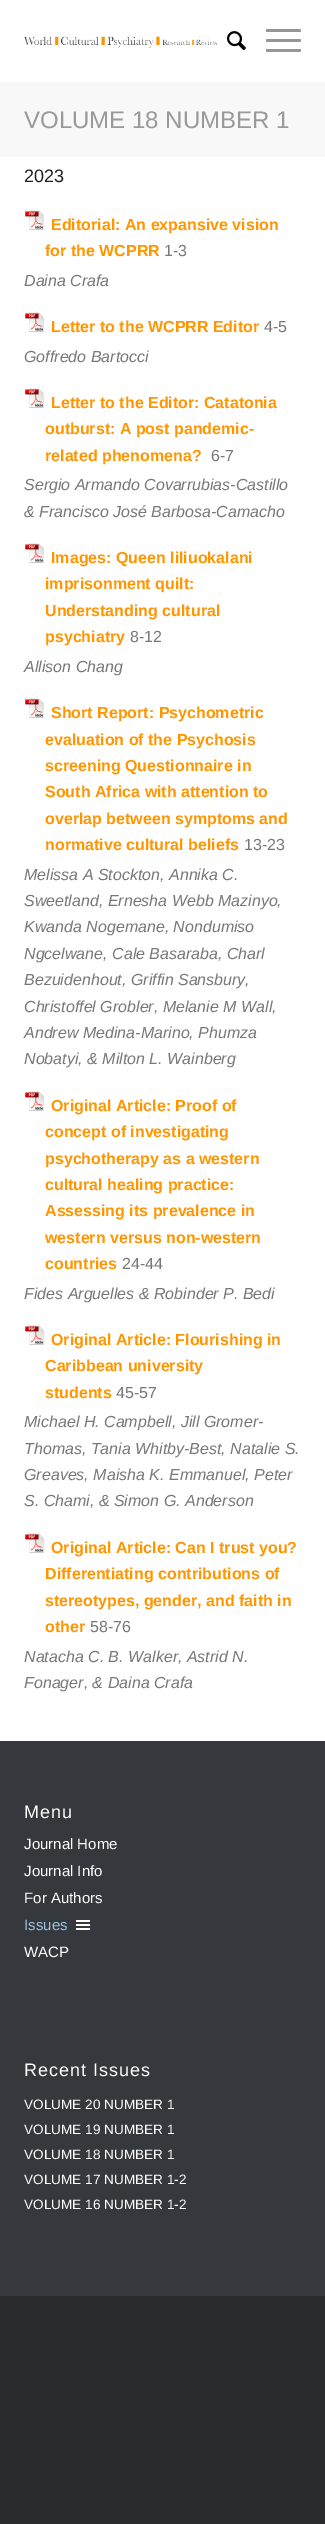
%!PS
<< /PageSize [325 2524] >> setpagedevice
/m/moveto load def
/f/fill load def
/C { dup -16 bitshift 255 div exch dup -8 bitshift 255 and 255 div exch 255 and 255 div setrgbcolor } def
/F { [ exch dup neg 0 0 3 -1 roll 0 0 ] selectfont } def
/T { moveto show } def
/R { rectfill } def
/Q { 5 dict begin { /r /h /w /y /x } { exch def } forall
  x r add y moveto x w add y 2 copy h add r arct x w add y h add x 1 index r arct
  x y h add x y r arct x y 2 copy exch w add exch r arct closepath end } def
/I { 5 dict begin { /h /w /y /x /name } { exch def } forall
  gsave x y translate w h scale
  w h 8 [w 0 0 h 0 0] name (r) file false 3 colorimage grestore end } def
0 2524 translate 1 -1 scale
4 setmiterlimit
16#282B2E C
0 0 325 2524 R
16#FFFFFF C
0 0 325 1741 R
(1.rgb) 24 36 194 12 I
(2.rgb) 227 31 19 20 I
16#969696 C
266 39 35 3 1.5 Q f
266 29 35 3 1.5 Q f
266 49 35 3 1.5 Q f
16#F8F8F8 C
0 82 325 75 R
/LiberationSans-Regular 24 F
16#999999 C
(VOLUME 18 NUMBER 1) 24 128 T
/LiberationSans-Regular 18 F
16#222222 C
(2023) 24 182 T
(3.rgb) 25 210 19 20 I
/LiberationSans-Bold 16 F
16#FF9500 C
(Editorial: An expansive vision) 51 230 T
(for the WCPRR) 45 256 T
/LiberationSans-Regular 16 F
16#787878 C
(1-3) 164 256 T
/LiberationSans-Italic 16 F
(Daina Crafa) 24 286 T
(3.rgb) 25 312 19 20 I
/LiberationSans-Bold 16 F
16#FF9500 C
(Letter to the WCPRR Editor) 51 332 T
/LiberationSans-Regular 16 F
16#787878 C
(4-5) 264 332 T
/LiberationSans-Italic 16 F
(Goffredo Bartocci) 24 362 T
(3.rgb) 25 388 19 20 I
/LiberationSans-Bold 16 F
16#FF9500 C
(Letter to the Editor: Catatonia) 51 408 T
(outburst: A post pandemic-) 45 434 T
(related phenomena?) 45 461 T
/LiberationSans-Regular 16 F
16#787878 C
(6-7) 211 461 T
/LiberationSans-Italic 16 F
(Sergio Armando Covarrubias-Castillo) 24 490 T
(& Francisco José Barbosa-Camacho) 24 517 T
(3.rgb) 25 543 19 20 I
/LiberationSans-Bold 16 F
16#FF9500 C
(Images: Queen liliuokalani) 51 563 T
(imprisonment quilt:) 45 589 T
(Understanding cultural) 45 616 T
(psychiatry) 45 642 T
/LiberationSans-Regular 16 F
16#787878 C
(8-12) 130 642 T
/LiberationSans-Italic 16 F
(Allison Chang) 24 672 T
(3.rgb) 25 698 19 20 I
/LiberationSans-Bold 16 F
16#FF9500 C
(Short Report: Psychometric) 51 718 T
(evaluation of the Psychosis) 45 745 T
(screening Questionnaire in) 45 771 T
(South Africa with attention to) 45 797 T
(overlap between symptoms and) 45 824 T
(normative cultural beliefs) 45 850 T
/LiberationSans-Regular 16 F
16#787878 C
(13-23) 244 850 T
/LiberationSans-Italic 16 F
(Melissa A Stockton, Annika C.) 24 880 T
(Sweetland, Ernesha Webb Mazinyo,) 24 906 T
(Kwanda Nogemane, Nondumiso) 24 932 T
(Ngcelwane, Cale Basaraba, Charl) 24 959 T
(Bezuidenhout, Griffin Sansbury,) 24 985 T
(Christoffel Grobler, Melanie M Wall,) 24 1012 T
(Andrew Medina-Marino, Phumza) 24 1038 T
(Nobatyi, & Milton L. Wainberg) 24 1064 T
(3.rgb) 25 1091 19 20 I
/LiberationSans-Bold 16 F
16#FF9500 C
(Original Article: Proof of) 51 1111 T
(concept of investigating) 45 1137 T
(psychotherapy as a western) 45 1164 T
(cultural healing practice:) 45 1190 T
(Assessing its prevalence in) 45 1216 T
(western versus non-western) 45 1243 T
(countries) 45 1269 T
/LiberationSans-Regular 16 F
16#787878 C
(24-44) 122 1269 T
/LiberationSans-Italic 16 F
(Fides Arguelles & Robinder P. Bedi) 24 1299 T
(3.rgb) 25 1325 19 20 I
/LiberationSans-Bold 16 F
16#FF9500 C
(Original Article: Flourishing in) 51 1345 T
(Caribbean university) 45 1371 T
(students) 45 1398 T
/LiberationSans-Regular 16 F
16#787878 C
(45-57) 116 1398 T
/LiberationSans-Italic 16 F
(Michael H. Campbell, Jill Gromer-) 24 1427 T
(Thomas, Tania Whitby-Best, Natalie S.) 24 1454 T
(Greaves, Maisha K. Emmanuel, Peter) 24 1480 T
(S. Chami, & Simon G. Anderson) 24 1506 T
(3.rgb) 25 1533 19 20 I
/LiberationSans-Bold 16 F
16#FF9500 C
(Original Article: Can I trust you?) 51 1553 T
(Differentiating contributions of) 45 1579 T
(stereotypes, gender, and faith in) 45 1606 T
(other) 45 1632 T
/LiberationSans-Regular 16 F
16#787878 C
(58-76) 90 1632 T
/LiberationSans-Italic 16 F
(Natacha C. B. Walker, Astrid N.) 24 1662 T
(Fonager, & Daina Crafa) 24 1688 T
16#35383C C
0 1741 325 555 R
/LiberationSans-Regular 18 F
16#FFFFFF C
24 1818 m 1 0 (Menu) ashow
/LiberationSans-Regular 15 F
(Journal Home) 24 1849 T
(Journal Info) 24 1876 T
(For Authors) 24 1903 T
16#9CC3DF C
(Issues) 24 1930 T
(4.rgb) 76 1920 14 10 I
16#FFFFFF C
(WACP) 24 1957 T
/LiberationSans-Regular 18 F
24 2076 m 1 0 (Recent Issues) ashow
/LiberationSans-Regular 13.6 F
(VOLUME 20 NUMBER 1) 24 2109 T
(VOLUME 19 NUMBER 1) 24 2134 T
(VOLUME 18 NUMBER 1) 24 2159 T
(VOLUME 17 NUMBER 1-2) 24 2184 T
(VOLUME 16 NUMBER 1-2) 24 2209 T
showpage
